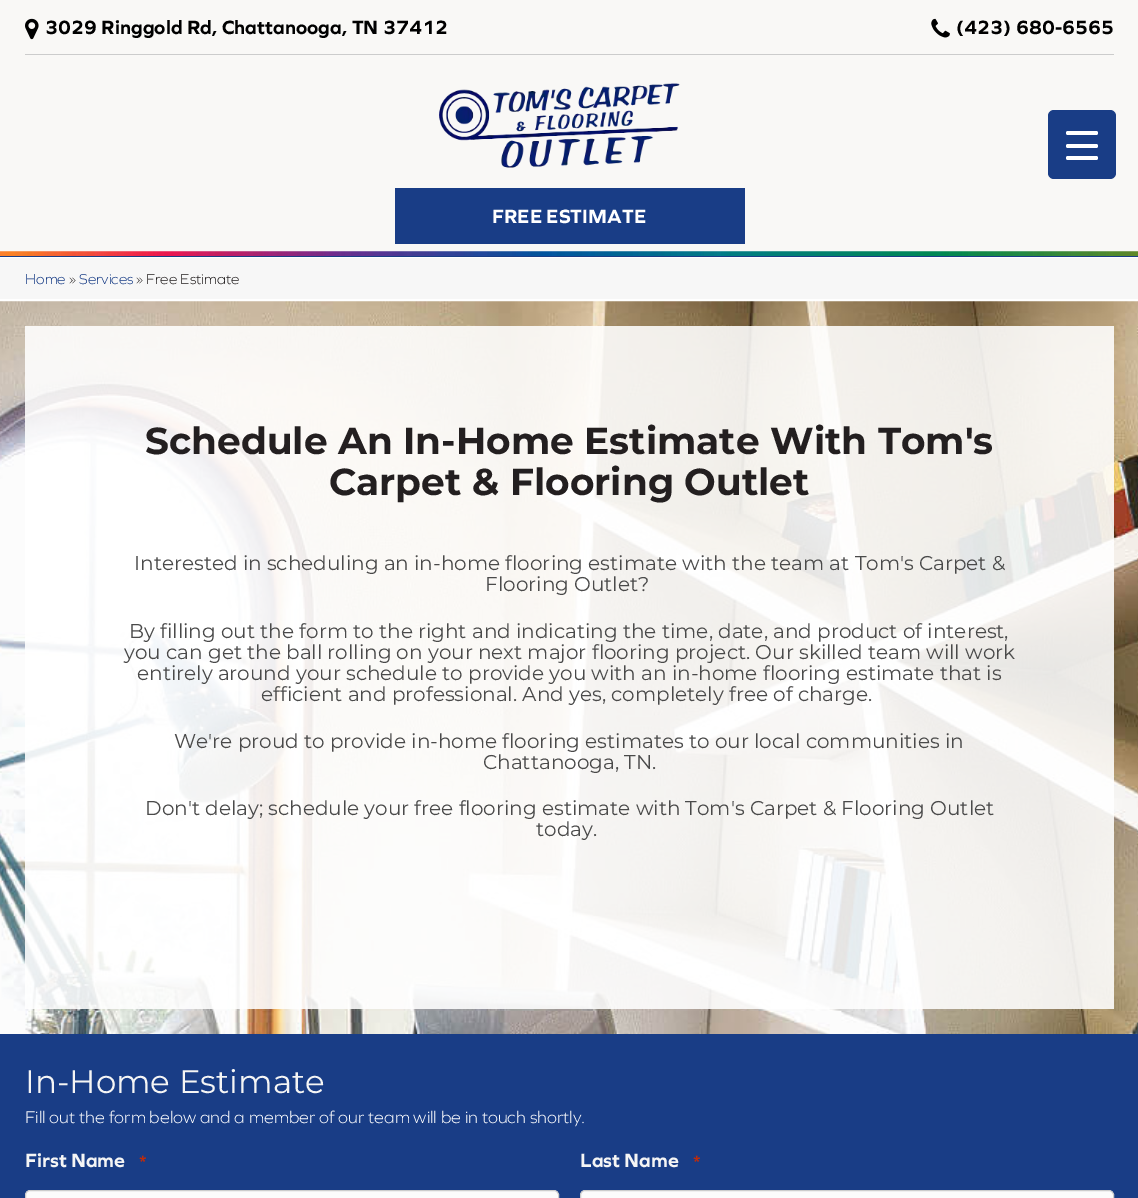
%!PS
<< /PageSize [1138 1198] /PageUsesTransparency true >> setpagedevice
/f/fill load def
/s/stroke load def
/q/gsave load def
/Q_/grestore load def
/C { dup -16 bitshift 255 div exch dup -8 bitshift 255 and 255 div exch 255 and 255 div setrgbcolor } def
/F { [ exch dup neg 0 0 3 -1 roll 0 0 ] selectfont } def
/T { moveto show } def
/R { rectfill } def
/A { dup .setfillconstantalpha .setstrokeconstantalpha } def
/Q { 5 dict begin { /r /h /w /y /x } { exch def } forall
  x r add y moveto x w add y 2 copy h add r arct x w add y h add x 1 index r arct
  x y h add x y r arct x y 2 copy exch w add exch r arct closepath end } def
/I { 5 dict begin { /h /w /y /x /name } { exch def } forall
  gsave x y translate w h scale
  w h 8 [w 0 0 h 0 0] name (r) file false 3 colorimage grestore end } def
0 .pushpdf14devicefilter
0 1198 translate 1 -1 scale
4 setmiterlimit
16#FFFFFF C
0 0 1138 1198 R
16#F9F8F6 C
0 0 1138 252 R
(1.rgb) 0 251 1138 5 I
(2.rgb) 25 18 14 22 I
/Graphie-Bold 20 F
16#000000 C
(3029 Ringgold Rd, Chattanooga, TN 37412) 45 34 T
(3.rgb) 931 18 19 20 I
(\(423\) 680-6565) 956 34 T
16#CCCCCC C
25 54 1089 1 R
(4.rgb) 439 83 241 85 I
16#193D86 C
395 188 350 56 R
16#FFFFFF C
(FREE ESTIMATE) 492 223 T
16#193D86 C
0 256 1138 1 R
16#F7F7F7 C
0 258 1138 41 R
/Graphie-Light 15 F
16#193D86 C
(Home) 25 284 T
16#231F20 C
(») 69 284 T
16#193D86 C
(Services) 79 284 T
16#231F20 C
(» Free Estimate) 136 284 T
(5.rgb) 0 301 1138 733 I
0.88 A
16#FFFFFF C
25 326 1089 683 R
/Montserrat-Bold 37.5 F
1 A
16#231F20 C
(Schedule An In-Home Estimate With Tom's) 145 454 T
(Carpet & Flooring Outlet) 329 495 T
/Montserrat-Regular 20 F
16#4A4A4A C
(Interested in scheduling an in-home flooring estimate with the team at Tom's Carpet &) 134 570 T
(Flooring Outlet?) 485 591 T
(By filling out the form to the right and indicating the time, date, and product of interest,) 129 638 T
(you can get the ball rolling on your next major flooring project. Our skilled team will work) 124 659 T
(entirely around your schedule to provide you with an in-home flooring estimate that is) 137 680 T
(efficient and professional. And yes, completely free of charge.) 261 701 T
(We're proud to provide in-home flooring estimates to our local communities in) 174 748 T
(Chattanooga, TN.) 483 769 T
(Don't delay; schedule your free flooring estimate with Tom's Carpet & Flooring Outlet) 145 815 T
(today.) 536 836 T
16#193D86 C
0 1034 1138 164 R
/Montserrat-Regular 32.5 F
16#F5F5F5 C
(In-Home Estimate) 25 1093 T
/Graphie-Light 17.5 F
16#FFFFFF C
(Fill out the form below and a member of our team will be in touch shortly.) 25 1123 T
/Graphie-Bold 20 F
16#F5F5F5 C
(First Name) 25 1167 T
/Graphie-Bold 16 F
16#C02B0A C
(*) 139 1167 T
16#FCFCFC C
25.5 1190.5 533 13 4.5 Q q f Q_
16#CCCCCC C
s
/Graphie-Bold 20 F
16#F5F5F5 C
(Last Name) 580 1167 T
/Graphie-Bold 16 F
16#C02B0A C
(*) 693 1167 T
16#FCFCFC C
580.5 1190.5 533 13 4.5 Q q f Q_
16#CCCCCC C
s
16#193D86 C
1048 110 68 69 6 Q f
16#FFFFFF C
1066 144 32 4 2 Q f
1066 131 32 4 2 Q f
1066 156 32 4 2 Q f
.poppdf14devicefilter showpage
